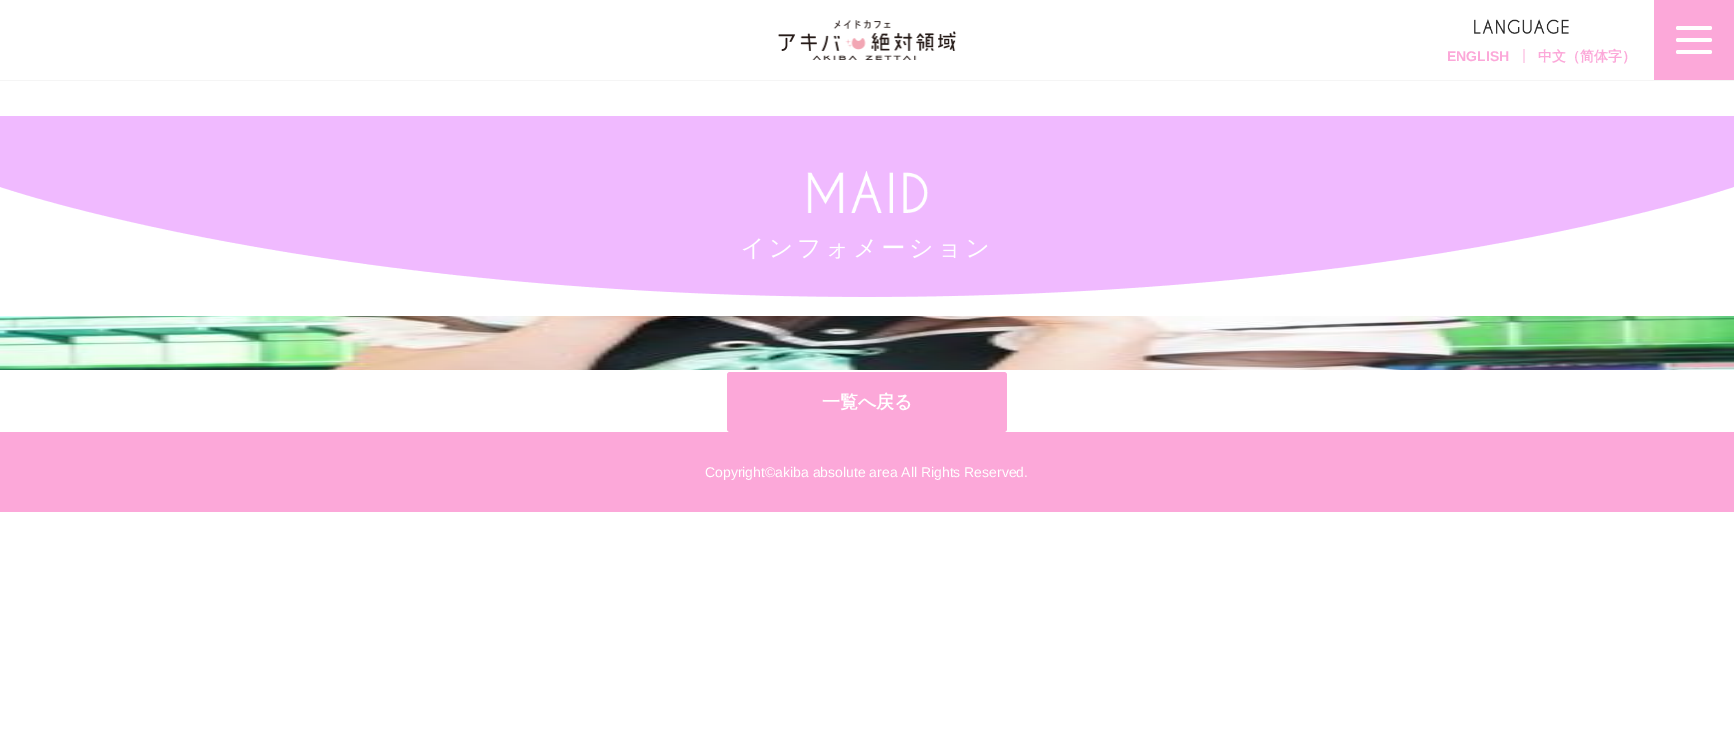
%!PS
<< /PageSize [1734 730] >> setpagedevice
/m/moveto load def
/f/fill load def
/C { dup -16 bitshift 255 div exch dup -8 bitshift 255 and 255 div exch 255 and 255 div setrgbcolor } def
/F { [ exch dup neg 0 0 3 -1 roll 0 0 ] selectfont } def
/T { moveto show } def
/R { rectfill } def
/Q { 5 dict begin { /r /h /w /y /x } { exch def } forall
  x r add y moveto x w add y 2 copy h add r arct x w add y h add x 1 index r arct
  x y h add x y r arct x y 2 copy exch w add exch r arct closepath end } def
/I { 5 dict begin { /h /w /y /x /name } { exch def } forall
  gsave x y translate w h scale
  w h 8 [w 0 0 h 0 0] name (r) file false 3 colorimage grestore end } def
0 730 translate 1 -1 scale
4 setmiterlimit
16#FFFFFF C
0 0 1734 730 R
(1.rgb) 778 20 179 40 I
(2.rgb) 1474 19 95 15 I
16#FDD6EC C
1523 49 2 14 R
/LiberationSans-Bold 14 F
16#FCA8D9 C
(ENGLISH) 1447 61 T
/WenQuanYiZenHei-Bold 14 F
(中文（简体字）) 1538 61 T
1654 0 80 80 R
16#FFFFFF C
1676 26 36 4 2 Q f
1676 38 36 4 2 Q f
1676 50 36 4 2 Q f
16#F5F5F5 C
0 80 1734 1 R
16#F0BAFF C
0 116 1734 181 R
(3.rgb) 807 171 121 42 I
/WenQuanYiZenHei-Bold 24 F
16#FFFFFF C
741 256 m 3.5 0 (インフォメーション) ashow
(4.rgb) 0 187 1734 129 I
(5.rgb) 0 316 1734 54 I
16#FCA8D9 C
727 372 280 60 3 Q f
/WenQuanYiZenHei-Bold 18 F
16#FFFFFF C
(一覧へ戻る) 822 408 T
16#FCA8D9 C
0 432 1734 80 R
/LiberationSans-Regular 14 F
16#FFFFFF C
(Copyright©akiba absolute area All Rights Reserved.) 705 477 T
showpage
